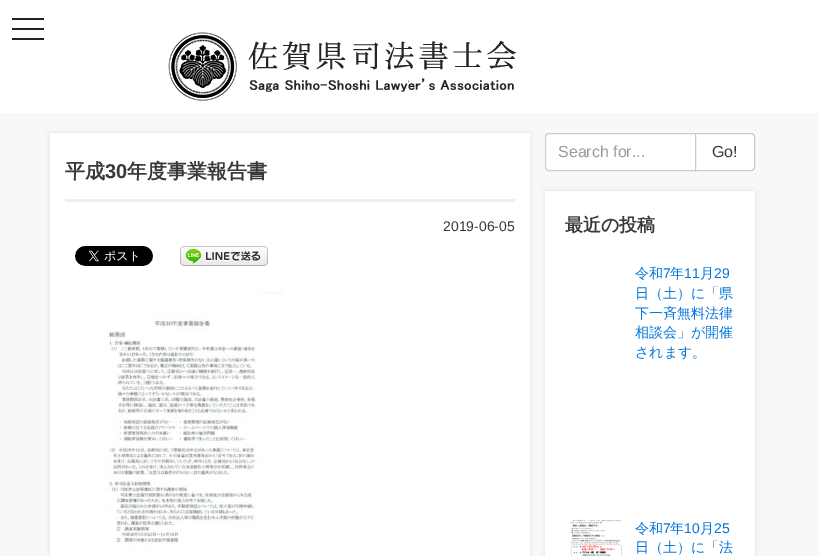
%!PS
<< /PageSize [819 556] /PageUsesTransparency true >> setpagedevice
/m/moveto load def
/l/rlineto load def
/c/rcurveto load def
/z/closepath load def
/f/fill load def
/s/stroke load def
/q/gsave load def
/Q_/grestore load def
/C { dup -16 bitshift 255 div exch dup -8 bitshift 255 and 255 div exch 255 and 255 div setrgbcolor } def
/F { [ exch dup neg 0 0 3 -1 roll 0 0 ] selectfont } def
/T { moveto show } def
/R { rectfill } def
/A { dup .setfillconstantalpha .setstrokeconstantalpha } def
/Q { 5 dict begin { /r /h /w /y /x } { exch def } forall
  x r add y moveto x w add y 2 copy h add r arct x w add y h add x 1 index r arct
  x y h add x y r arct x y 2 copy exch w add exch r arct closepath end } def
/S { 12 dict begin { /a /b /q /h /w /y /x } { exch def } forall gsave /was 0 def
  9 -2 -9 { dup b mul 4 div /e exch def 1 sub .425 mul 2.718 exch exp 1 add a .99 .min exch div /now exch def
    1 1 now sub 1 was sub div sub A /was now def
    w h .min e 2 mul add 0 gt { x e sub y e sub w e 2 mul add h e 2 mul add
      q e add b .6 mul add w h .min 2 div e add .min 0 .max Q fill } if } for grestore end } def
/I { 5 dict begin { /h /w /y /x /name } { exch def } forall
  gsave x y translate w h scale
  w h 8 [w 0 0 h 0 0] name (r) file false 3 colorimage grestore end } def
0 .pushpdf14devicefilter
0 556 translate 1 -1 scale
4 setmiterlimit
16#F8F8F8 C
0 0 819 556 R
16#FFFFFF C
0 0 819 113 R
16#222222 C
12 28 32 2 R
12 18 32 2 R
12 38 32 2 R
(1.rgb) 168 32 348 69 I
16#E4E4E4 C
50 133 480 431 0 2.5 1 S
16#FFFFFF C
50 133 480 423 R
16#EEEEEE C
65 199 450 3 R
/WenQuanYiZenHei-Bold 20 F
16#373A3C C
(平成) 65 178 T
/LiberationSans-Bold 20 F
(30) 105 178 T
/WenQuanYiZenHei-Bold 20 F
(年度事業報告書) 127 178 T
/LiberationSans-Regular 14 F
(2019-06-05) 443 231 T
(2.rgb) 75 246 78 20 I
(3.rgb) 180 246 88 20 I
(4.rgb) 107 292 176 255 I
16#FFFFFF C
549 133.5 m 146.5 0 l 0 37 l -146.5 0 l -2 0 -3.5 -1.5 -3.5 -3.5 c 0 -30 l 0 -2 1.5 -3.5 3.5 -3.5 c z q f Q_
16#CCCCCC C
s
/LiberationSans-Regular 16 F
16#999999 C
(Search for...) 558 157 T
16#FFFFFF C
695.5 133.5 m 55.5 0 l 2 0 3.5 1.5 3.5 3.5 c 0 30 l 0 2 -1.5 3.5 -3.5 3.5 c -55.5 0 l z q f Q_
16#CCCCCC C
s
16#373A3C C
(Go!) 712 157 T
16#E4E4E4 C
545 191 210 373 0 2.5 1 S
16#FFFFFF C
545 191 210 365 R
/WenQuanYiZenHei-Bold 18 F
16#373A3C C
(最近の投稿) 565 231 T
/WenQuanYiZenHei-Medium 14 F
16#0275D8 C
(令和) 635 278 T
/LiberationSans-Regular 14 F
(7) 663 278 T
/WenQuanYiZenHei-Medium 14 F
(年) 670 278 T
/LiberationSans-Regular 14 F
(11) 684 278 T
/WenQuanYiZenHei-Medium 14 F
(月) 700 278 T
/LiberationSans-Regular 14 F
(29) 714 278 T
/WenQuanYiZenHei-Medium 14 F
(日（土）に「県) 635 298 T
(下一斉無料法律) 635 318 T
(相談会」が開催) 635 337 T
(されます。) 635 357 T
(5.rgb) 570 519 52 37 I
(令和) 635 533 T
/LiberationSans-Regular 14 F
(7) 663 533 T
/WenQuanYiZenHei-Medium 14 F
(年) 670 533 T
/LiberationSans-Regular 14 F
(10) 684 533 T
/WenQuanYiZenHei-Medium 14 F
(月) 700 533 T
/LiberationSans-Regular 14 F
(25) 714 533 T
/WenQuanYiZenHei-Medium 14 F
(日（土）に「法) 635 552 T
.poppdf14devicefilter showpage
